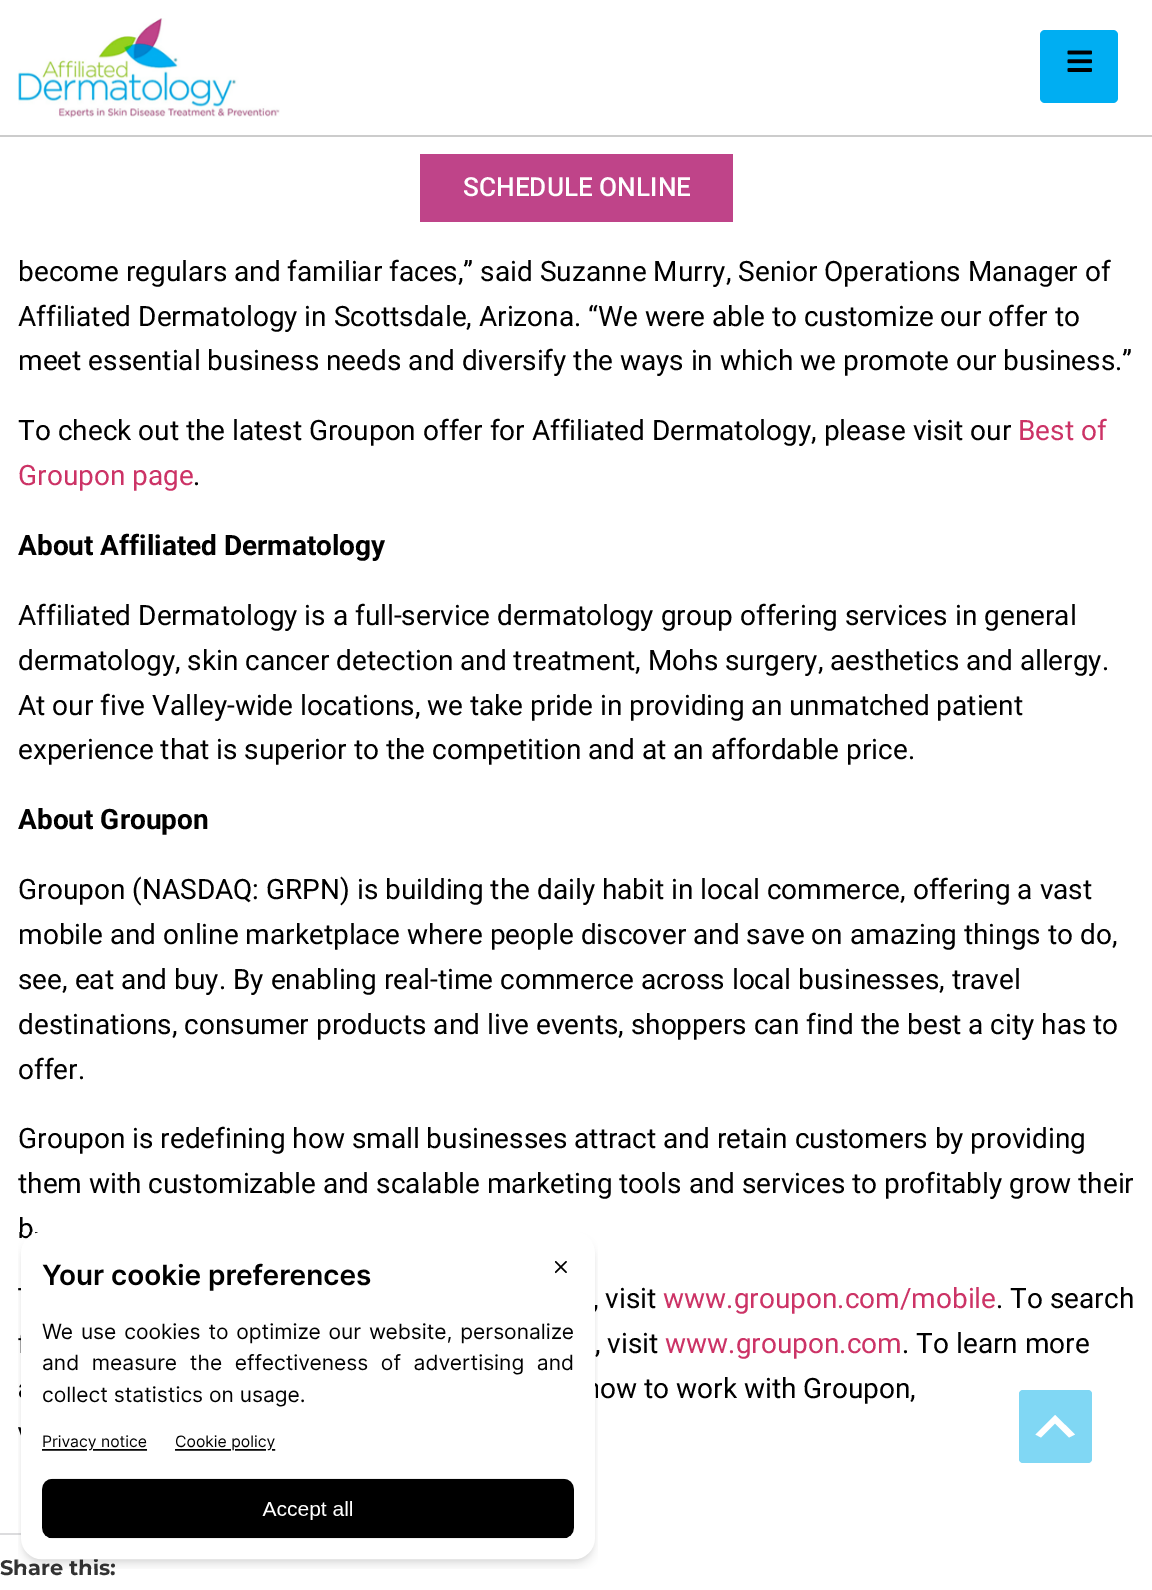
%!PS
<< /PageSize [1152 1590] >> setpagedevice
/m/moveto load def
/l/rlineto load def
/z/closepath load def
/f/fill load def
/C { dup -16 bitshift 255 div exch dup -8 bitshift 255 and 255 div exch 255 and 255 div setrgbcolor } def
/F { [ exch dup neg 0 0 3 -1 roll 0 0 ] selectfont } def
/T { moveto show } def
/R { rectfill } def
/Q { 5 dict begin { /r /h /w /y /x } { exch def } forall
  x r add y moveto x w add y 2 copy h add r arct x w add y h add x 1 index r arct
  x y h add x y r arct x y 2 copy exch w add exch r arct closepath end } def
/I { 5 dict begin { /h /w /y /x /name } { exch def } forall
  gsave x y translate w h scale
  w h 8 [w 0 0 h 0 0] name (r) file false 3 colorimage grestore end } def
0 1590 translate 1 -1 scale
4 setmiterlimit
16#FFFFFF C
0 0 1152 1590 R
(1.rgb) 18 18 262 100 I
16#00AEF2 C
1040 30 78 73 5 Q f
(2.rgb) 1067 50 25 22 I
16#CCCCCC C
0 135 1152 2 R
16#BF4489 C
420 154 313 68 R
/Roboto-Medium 26.25 F
16#FFFFFF C
(SCHEDULE ONLINE) 463 196 T
/Roboto-Regular 28 F
16#000000 C
(become regulars and familiar faces,” said Suzanne Murry, Senior Operations Manager of) 18 281 T
(Affiliated Dermatology in Scottsdale, Arizona. “We were able to customize our offer to) 18 326 T
(meet essential business needs and diversify the ways in which we promote our business.”) 18 370 T
(To check out the latest Groupon offer for Affiliated Dermatology, please visit our) 18 440 T
16#CC3366 C
(Best of) 1018 440 T
(Groupon page) 18 485 T
16#000000 C
(.) 193 485 T
/Roboto-Bold 28 F
(About Affiliated Dermatology) 18 555 T
/Roboto-Regular 28 F
(Affiliated Dermatology is a full-service dermatology group offering services in general) 18 625 T
(dermatology, skin cancer detection and treatment, Mohs surgery, aesthetics and allergy.) 18 670 T
(At our five Valley-wide locations, we take pride in providing an unmatched patient) 18 715 T
(experience that is superior to the competition and at an affordable price.) 18 759 T
/Roboto-Bold 28 F
(About Groupon) 18 829 T
/Roboto-Regular 28 F
(Groupon \(NASDAQ: GRPN\) is building the daily habit in local commerce, offering a vast) 18 899 T
(mobile and online marketplace where people discover and save on amazing things to do,) 18 944 T
(see, eat and buy. By enabling real-time commerce across local businesses, travel) 18 989 T
(destinations, consumer products and live events, shoppers can find the best a city has to) 18 1034 T
(offer.) 18 1079 T
(Groupon is redefining how small businesses attract and retain customers by providing) 18 1148 T
(them with customizable and scalable marketing tools and services to profitably grow their) 18 1193 T
(b) 18 1238 T
(, visit) 593 1308 T
16#CC3366 C
(www.groupon.com/mobile) 663 1308 T
16#000000 C
(. To search) 996 1308 T
(, visit) 595 1353 T
16#CC3366 C
(www.groupon.com) 665 1353 T
16#000000 C
(. To learn more) 902 1353 T
(ow to work with Groupon,) 600 1398 T
16#DCDCDE C
0 1533 21 2 R
/Montserrat-Bold 21 F
16#333333 C
(Share this:) 0 1575 T
(3.rgb) 18 1232 580 337 I
16#80D7F4 C
1019 1390 73 73 4 Q f
16#FFFFFF C
1069 1437.5 m -14 -14 l -14 14 l -5.5 -3 l 19.5 -19.5 l 20 19.5 l z f
showpage
